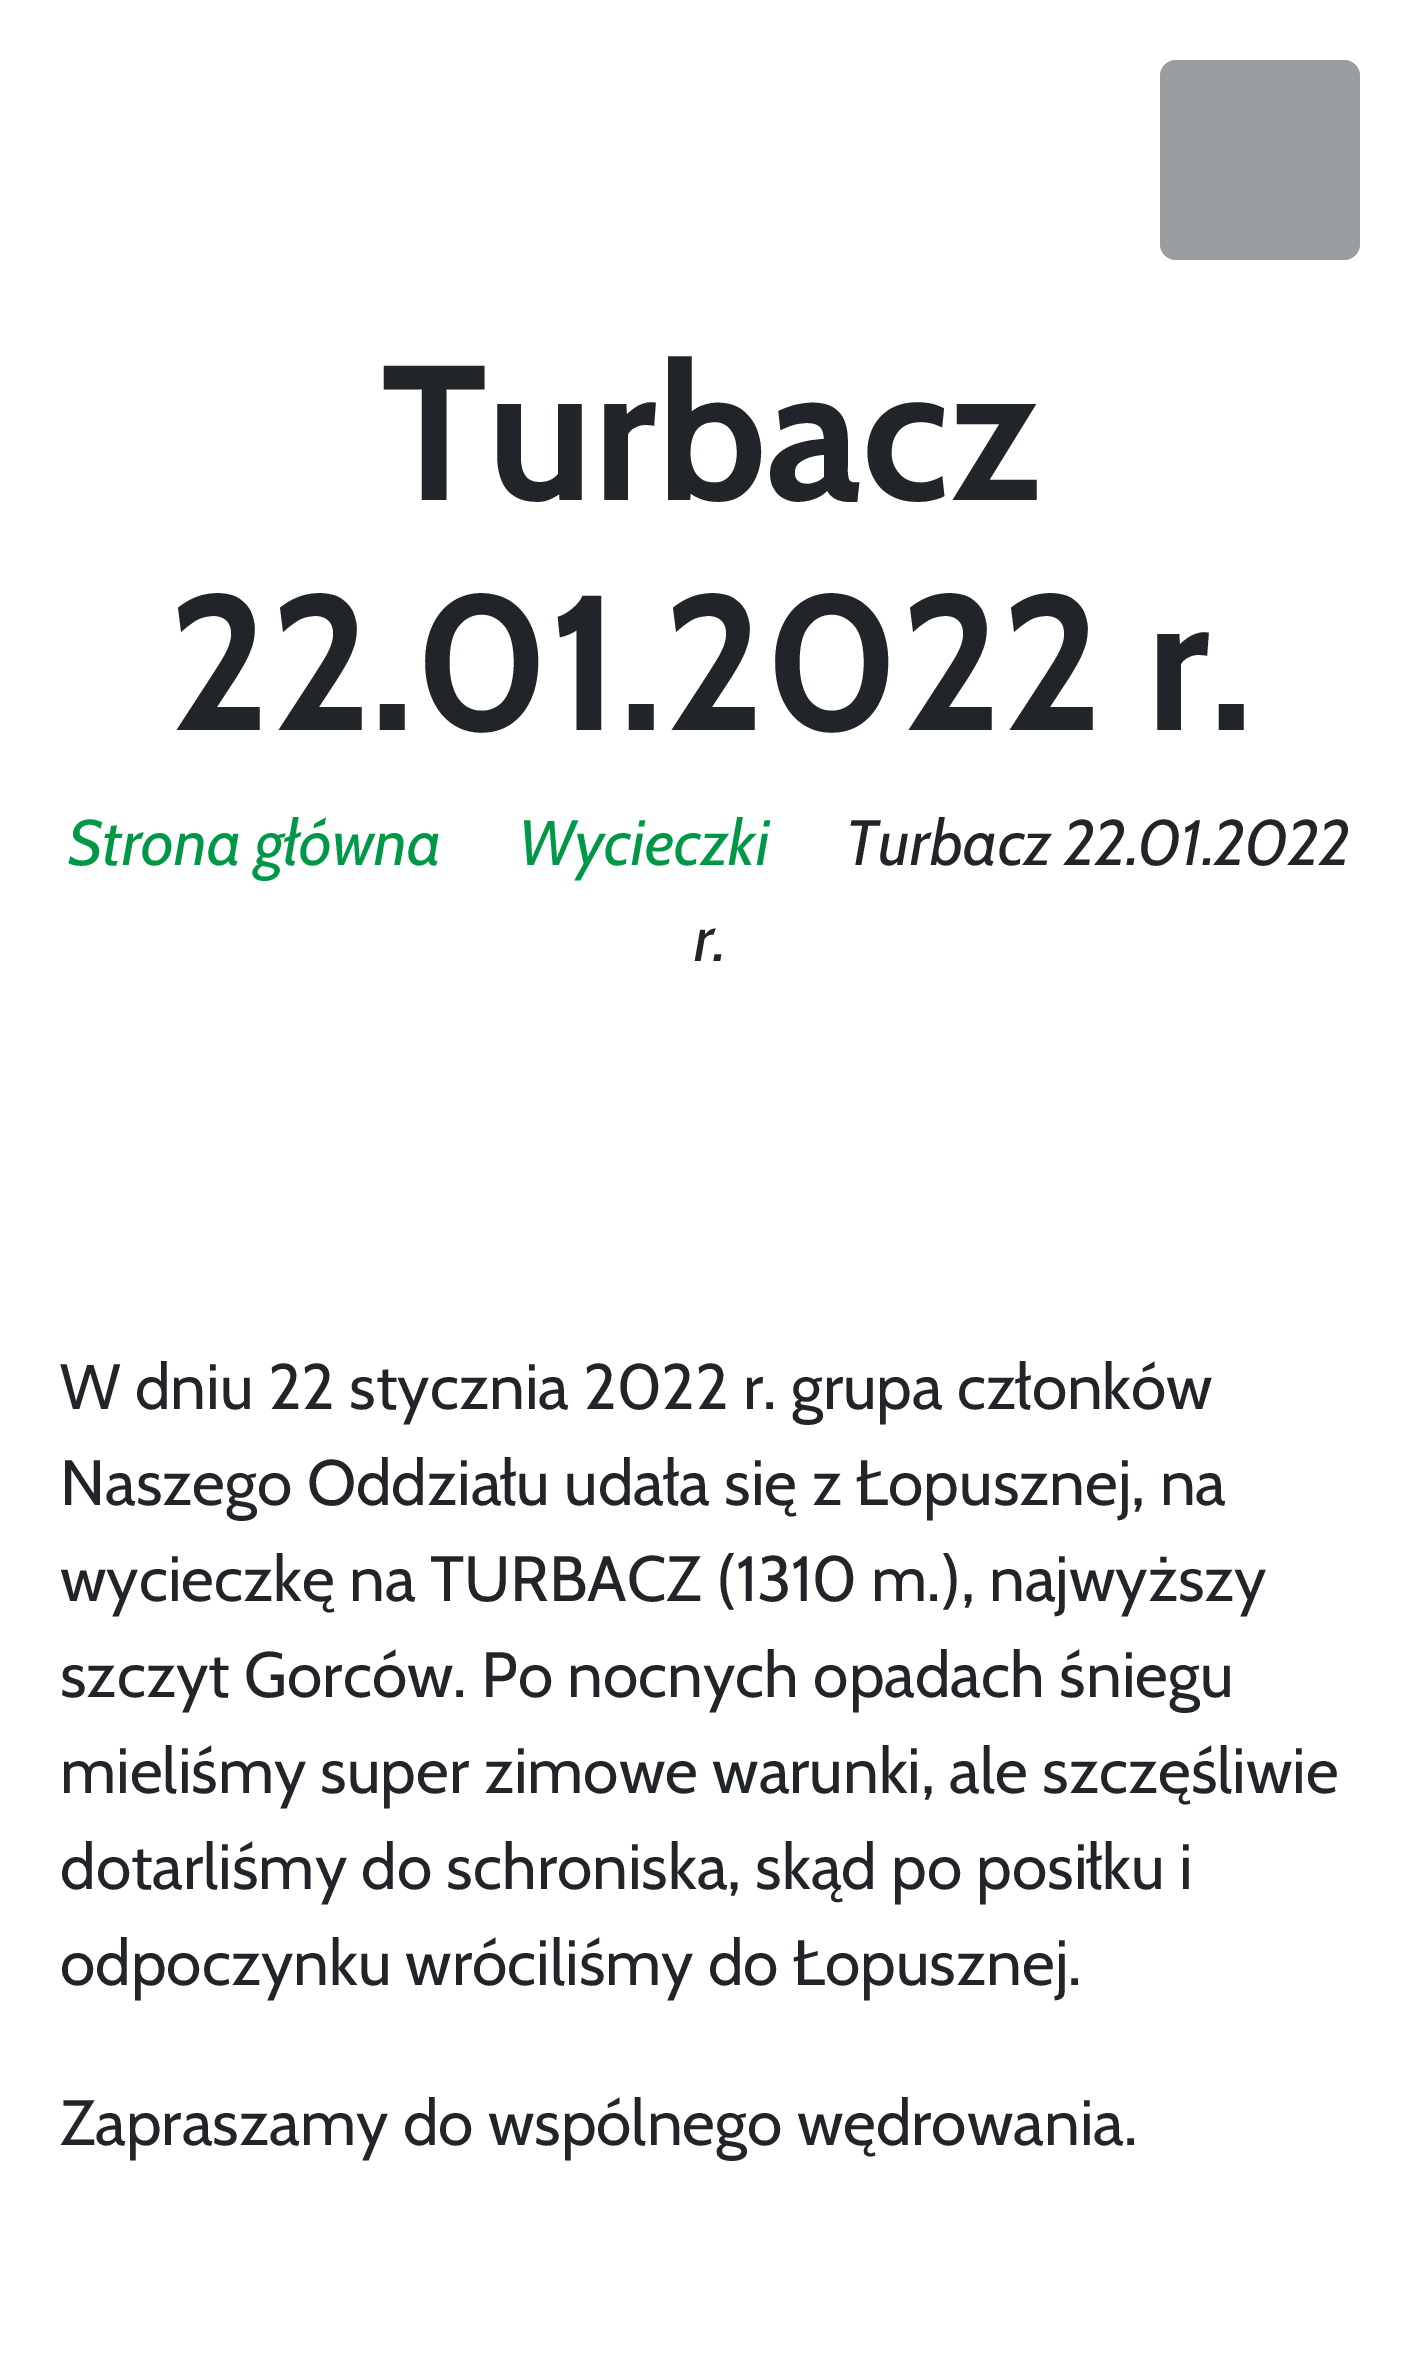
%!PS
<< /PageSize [1418 2376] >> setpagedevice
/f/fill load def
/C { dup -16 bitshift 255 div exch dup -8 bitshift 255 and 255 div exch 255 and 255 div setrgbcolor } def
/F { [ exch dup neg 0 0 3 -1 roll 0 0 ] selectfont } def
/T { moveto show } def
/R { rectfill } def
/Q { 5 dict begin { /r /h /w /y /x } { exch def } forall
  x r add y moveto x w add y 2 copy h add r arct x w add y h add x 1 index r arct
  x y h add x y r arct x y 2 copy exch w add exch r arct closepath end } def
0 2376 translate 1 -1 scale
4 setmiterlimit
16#FFFFFF C
0 0 1418 2376 R
16#9A9DA0 C
1160 60 200 200 16 Q f
/Cabin-Bold 192 F
16#212529 C
(Turbacz) 381 500 T
(22.01.2022 r.) 168 730 T
/Cabin-Italic 64 F
16#009846 C
(Strona główna) 68 865 T
(Wycieczki) 518 865 T
16#212529 C
(Turbacz 22.01.2022) 845 865 T
(r.) 694 961 T
/Cabin-Regular 64 F
(W dniu 22 stycznia 2022 r. grupa członków) 60 1409 T
(Naszego Oddziału udała się z Łopusznej, na) 60 1505 T
(wycieczkę na TURBACZ \(1310 m.\), najwyższy) 60 1601 T
(szczyt Gorców. Po nocnych opadach śniegu) 60 1697 T
(mieliśmy super zimowe warunki, ale szczęśliwie) 60 1793 T
(dotarliśmy do schroniska, skąd po posiłku i) 60 1889 T
(odpoczynku wróciliśmy do Łopusznej.) 60 1985 T
(Zapraszamy do wspólnego wędrowania.) 60 2145 T
showpage
